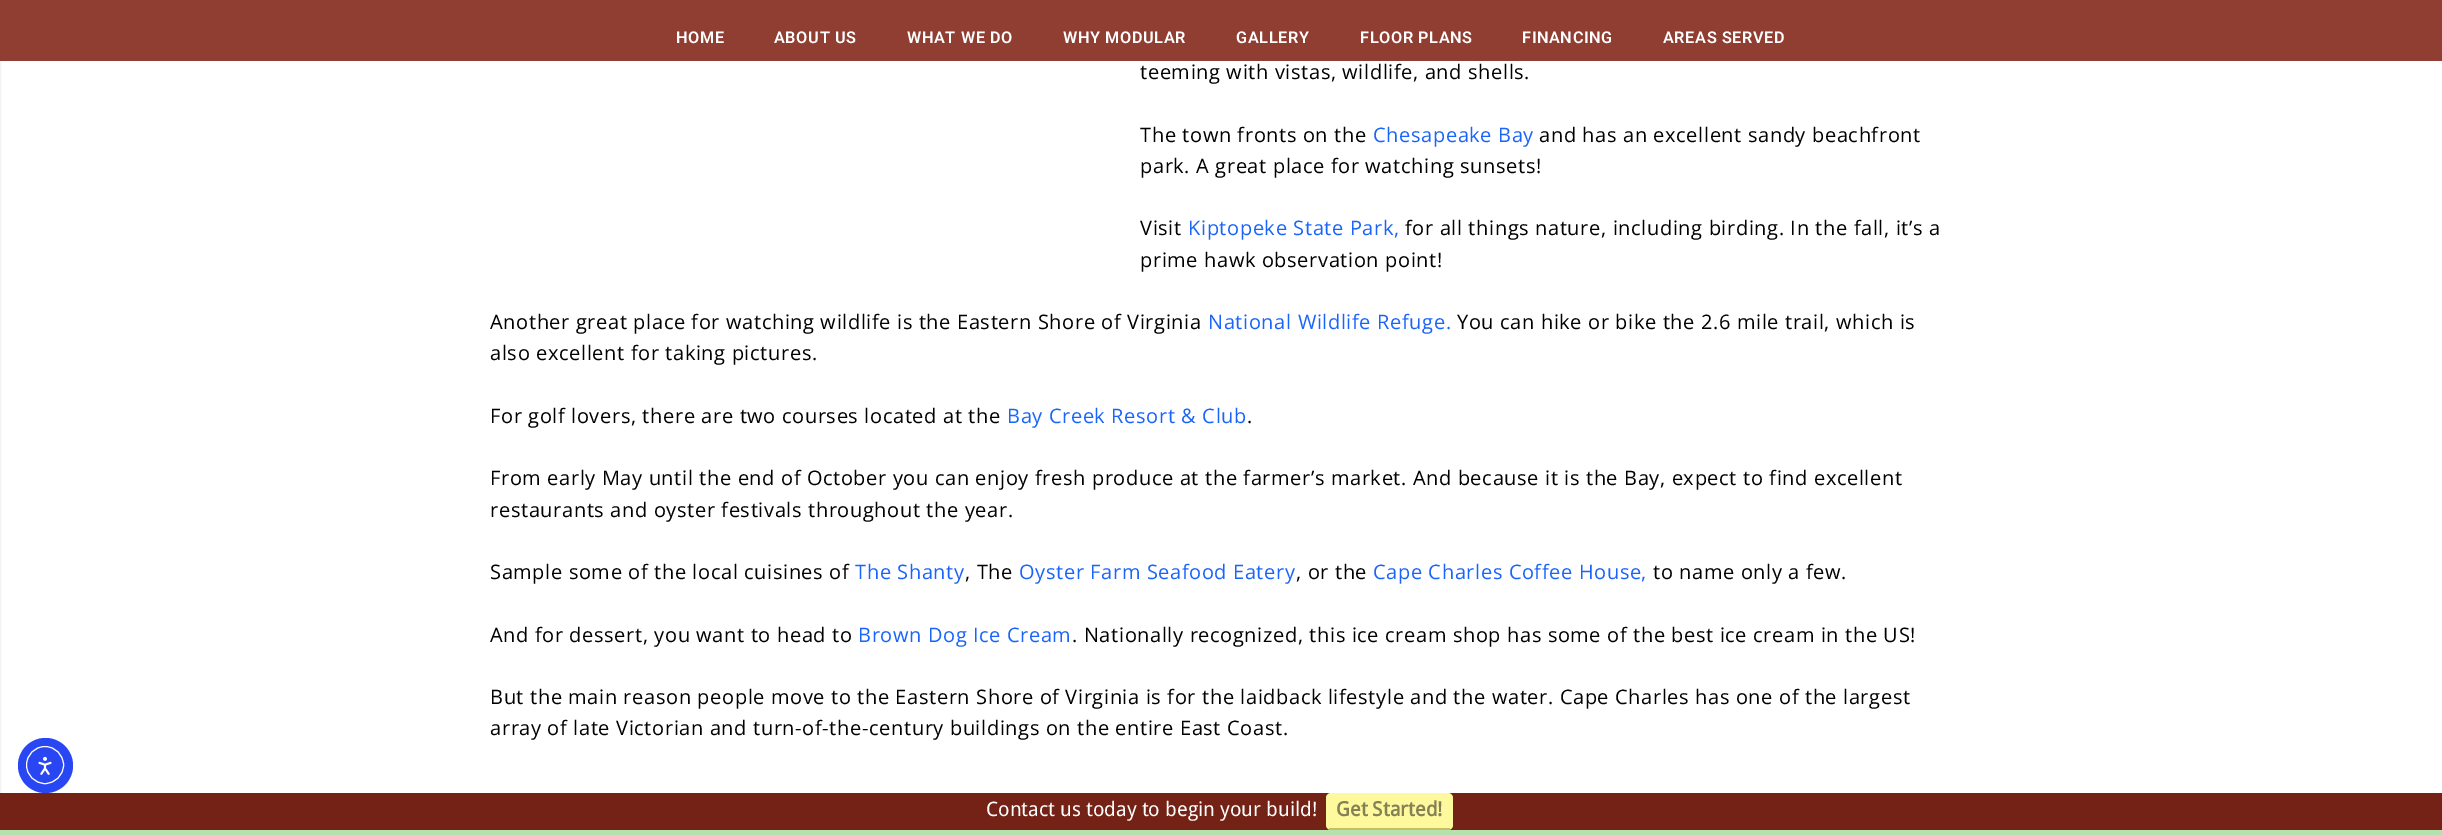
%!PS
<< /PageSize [2442 835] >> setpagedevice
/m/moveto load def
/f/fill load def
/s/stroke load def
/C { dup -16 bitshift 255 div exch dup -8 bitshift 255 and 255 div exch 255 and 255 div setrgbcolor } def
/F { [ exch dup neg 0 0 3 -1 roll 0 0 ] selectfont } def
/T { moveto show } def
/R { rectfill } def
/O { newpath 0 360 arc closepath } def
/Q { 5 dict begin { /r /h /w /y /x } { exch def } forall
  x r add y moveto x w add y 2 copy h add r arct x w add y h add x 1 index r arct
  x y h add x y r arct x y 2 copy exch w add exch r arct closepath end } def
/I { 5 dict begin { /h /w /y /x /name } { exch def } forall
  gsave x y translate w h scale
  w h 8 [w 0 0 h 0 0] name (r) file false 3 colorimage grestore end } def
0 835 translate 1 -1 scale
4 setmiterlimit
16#FFFFFF C
0 0 2442 835 R
16#F3F3F3 C
.5 -.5 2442 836 rectstroke
16#903E32 C
0 0 2442 61 R
/Roboto-SemiBold 16.25 F
16#FFFFFF C
676 43 m .62 0 (HOME) ashow
774 43 m .62 0 (ABOUT US) ashow
907 43 m .62 0 (WHAT WE DO) ashow
1063 43 m .62 0 (WHY MODULAR) ashow
1236 43 m .62 0 (GALLERY) ashow
1360 43 m .62 0 (FLOOR PLANS) ashow
1522 43 m .62 0 (FINANCING) ashow
1663 43 m .62 0 (AREAS SERVED) ashow
/OpenSans-Regular 20 F
16#000000 C
1140 79 m .62 0 (teeming with vistas, wildlife, and shells.) ashow
1140 142 m .62 0 (The town fronts on the) ashow
16#1964FA C
1373 142 m .62 0 (Chesapeake Bay) ashow
16#000000 C
1539 142 m .62 0 (and has an excellent sandy beachfront) ashow
1140 173 m .62 0 (park. A great place for watching sunsets!) ashow
1140 235 m .62 0 (Visit) ashow
16#1964FA C
1188 235 m .62 0 (Kiptopeke State Park,) ashow
16#000000 C
1405 235 m .62 0 (for all things nature, including birding. In the fall, it’s a) ashow
1140 267 m .62 0 (prime hawk observation point!) ashow
490 329 m .62 0 (Another great place for watching wildlife is the Eastern Shore of Virginia) ashow
16#1964FA C
1208 329 m .62 0 (National Wildlife Refuge.) ashow
16#000000 C
1457 329 m .62 0 (You can hike or bike the 2.6 mile trail, which is) ashow
490 360 m .62 0 (also excellent for taking pictures.) ashow
490 423 m .62 0 (For golf lovers, there are two courses located at the) ashow
16#1964FA C
1007 423 m .62 0 (Bay Creek Resort & Club) ashow
16#000000 C
1247 423 m .62 0 (.) ashow
490 485 m .62 0 (From early May until the end of October you can enjoy fresh produce at the farmer’s market. And because it is the Bay, expect to find excellent) ashow
490 517 m .62 0 (restaurants and oyster festivals throughout the year.) ashow
490 579 m .62 0 (Sample some of the local cuisines of) ashow
16#1964FA C
855 579 m .62 0 (The Shanty) ashow
16#000000 C
965 579 m .62 0 (, The) ashow
16#1964FA C
1019 579 m .62 0 (Oyster Farm Seafood Eatery) ashow
16#000000 C
1296 579 m .62 0 (, or the) ashow
16#1964FA C
1373 579 m .62 0 (Cape Charles Coffee House,) ashow
16#000000 C
1653 579 m .62 0 (to name only a few.) ashow
490 642 m .62 0 (And for dessert, you want to head to) ashow
16#1964FA C
858 642 m .62 0 (Brown Dog Ice Cream) ashow
16#000000 C
1072 642 m .62 0 (. Nationally recognized, this ice cream shop has some of the best ice cream in the US!) ashow
490 704 m .62 0 (But the main reason people move to the Eastern Shore of Virginia is for the laidback lifestyle and the water. Cape Charles has one of the largest) ashow
490 735 m .62 0 (array of late Victorian and turn-of-the-century buildings on the entire East Coast.) ashow
16#2847F3 C
45.5 765.5 27.5 O f
16#FFFFFF C
45 765 18.5 O s
(1.rgb) 38 756 14 19 I
16#742216 C
0 793 2442 37 R
16#B4E1AE C
0 830 2442 5 R
/DroidSans-Regular 20 F
16#FFFFFF C
(Contact us today to begin your build!) 986 816 T
16#FFF99E C
1326 793 127 37 5 Q f
16#C6C063 C
1329 828 121 2 R
/DroidSans-Bold 20 F
16#848154 C
(Get Started!) 1336 816 T
showpage
